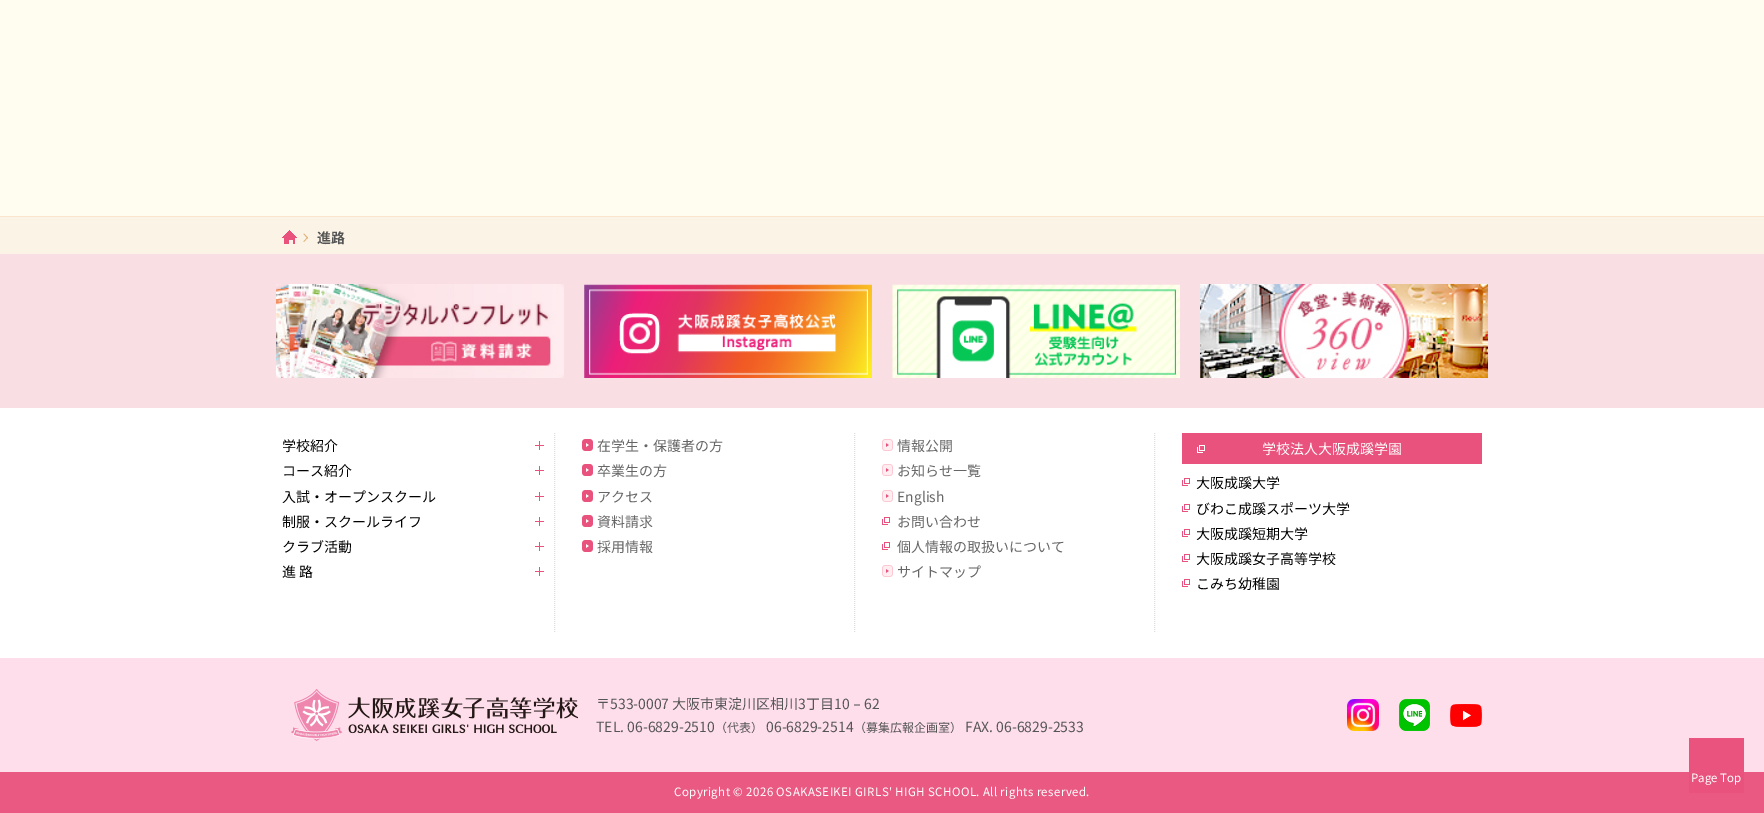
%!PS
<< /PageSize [1764 813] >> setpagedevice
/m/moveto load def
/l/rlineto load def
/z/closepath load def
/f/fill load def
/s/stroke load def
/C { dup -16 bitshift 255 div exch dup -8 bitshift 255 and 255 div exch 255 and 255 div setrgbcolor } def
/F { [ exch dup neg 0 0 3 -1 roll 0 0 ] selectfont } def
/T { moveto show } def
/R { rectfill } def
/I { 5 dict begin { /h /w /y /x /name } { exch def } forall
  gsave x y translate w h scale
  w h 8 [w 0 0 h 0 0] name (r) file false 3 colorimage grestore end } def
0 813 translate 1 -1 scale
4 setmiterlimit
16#FFFFFF C
0 0 1764 813 R
16#FFFDEF C
0 0 1764 216 R
16#FCF3E7 C
0 217 1764 37 R
16#F9E6CC C
0 216 1764 1 R
(1.rgb) 282 230 15 14 I
16#DFB276 C
304 233.5 m 4 4 l -.5 1 l -4 -4.5 l z f
307.5 237 m .5 .5 l -4 4.5 l -.5 -.5 l z f
/NotoSansJP-Bold 14 F
16#555555 C
(進路) 317 243 T
16#F9DFE3 C
0 254 1764 154 R
(2.rgb) 276 284 288 94 I
(3.rgb) 584 284 288 94 I
(4.rgb) 892 284 288 94 I
(5.rgb) 1200 284 288 94 I
16#DDDDDD C
[1 1] 0 setdash
554.5 433 m 0 200 l s
/NotoSansJP-Regular 14 F
16#000000 C
(学校紹介) 282 451 T
16#E9527C C
539 441 1 9 R
535 445 9 1 R
16#000000 C
(コース紹介) 282 476 T
16#E9527C C
539 466 1 9 R
535 470 9 1 R
16#000000 C
(入試・オープンスクール) 282 502 T
16#E9527C C
539 492 1 9 R
535 496 9 1 R
16#000000 C
(制服・スクールライフ) 282 527 T
16#E9527C C
539 517 1 9 R
535 521 9 1 R
16#000000 C
(クラブ活動) 282 552 T
16#E9527C C
539 542 1 9 R
535 546 9 1 R
16#000000 C
(進 路) 282 577 T
16#E9527C C
539 567 1 9 R
535 571 9 1 R
16#DDDDDD C
854.5 433 m 0 200 l s
(6.rgb) 582 439 11 12 I
16#666666 C
(在学生・保護者の方) 597 451 T
(6.rgb) 582 464 11 12 I
(卒業生の方) 597 476 T
(6.rgb) 582 490 11 12 I
(アクセス) 597 502 T
(6.rgb) 582 515 11 12 I
(資料請求) 597 527 T
(6.rgb) 582 540 11 12 I
(採用情報) 597 552 T
16#DDDDDD C
1154.5 433 m 0 200 l s
(7.rgb) 882 439 11 12 I
16#666666 C
(情報公開) 897 451 T
(7.rgb) 882 464 11 12 I
(お知らせ一覧) 897 476 T
(7.rgb) 882 490 11 12 I
(English) 897 502 T
(8.rgb) 882 517 8 8 I
(お問い合わせ) 897 527 T
(8.rgb) 882 542 8 8 I
(個人情報の取扱いについて) 897 552 T
(7.rgb) 882 565 11 12 I
(サイトマップ) 897 577 T
16#E9527C C
1182 433 300 31 R
(9.rgb) 1197 445 8 8 I
16#FFFFFF C
(学校法人大阪成蹊学園) 1262 454 T
(8.rgb) 1182 478 8 8 I
16#000000 C
(大阪成蹊大学) 1196 488 T
(8.rgb) 1182 504 8 8 I
(びわこ成蹊スポーツ大学) 1196 514 T
(8.rgb) 1182 529 8 8 I
(大阪成蹊短期大学) 1196 539 T
(8.rgb) 1182 554 8 8 I
(大阪成蹊女子高等学校) 1196 564 T
(8.rgb) 1182 579 8 8 I
(こみち幼稚園) 1196 589 T
16#FFDEEC C
0 658 1764 114 R
16#E9537D C
1689 738 55 34 R
(10.rgb) 291 689 287 52 I
16#555555 C
(〒533-0007 大阪市東淀川区相川3丁目10) 596 709 T
/WenQuanYiZenHei-Medium 14 F
(－) 850 709 T
/NotoSansJP-Regular 14 F
(62) 864 709 T
(TEL. 06-6829-2510) 596 732 T
/NotoSansJP-Regular 12 F
(（代表）) 715 732 T
/NotoSansJP-Regular 14 F
(06-6829-2514) 766 732 T
/NotoSansJP-Regular 12 F
(（募集広報企画室）) 854 732 T
/NotoSansJP-Regular 14 F
(FAX. 06-6829-2533) 965 732 T
(11.rgb) 1347 699 32 32 I
(12.rgb) 1399 699 31 32 I
(13.rgb) 1450 704 32 23 I
16#EA5982 C
0 772 1764 41 R
16#E9527C C
1689 772 55 21 R
/NotoSansJP-Regular 11.5 F
16#FFFFFF C
674 796 m .4 0 (Copyright © 2026 OSAKASEIKEI GIRLS' HIGH SCHOOL. All rights reserved.) ashow
(Page Top) 1691 782 T
showpage
